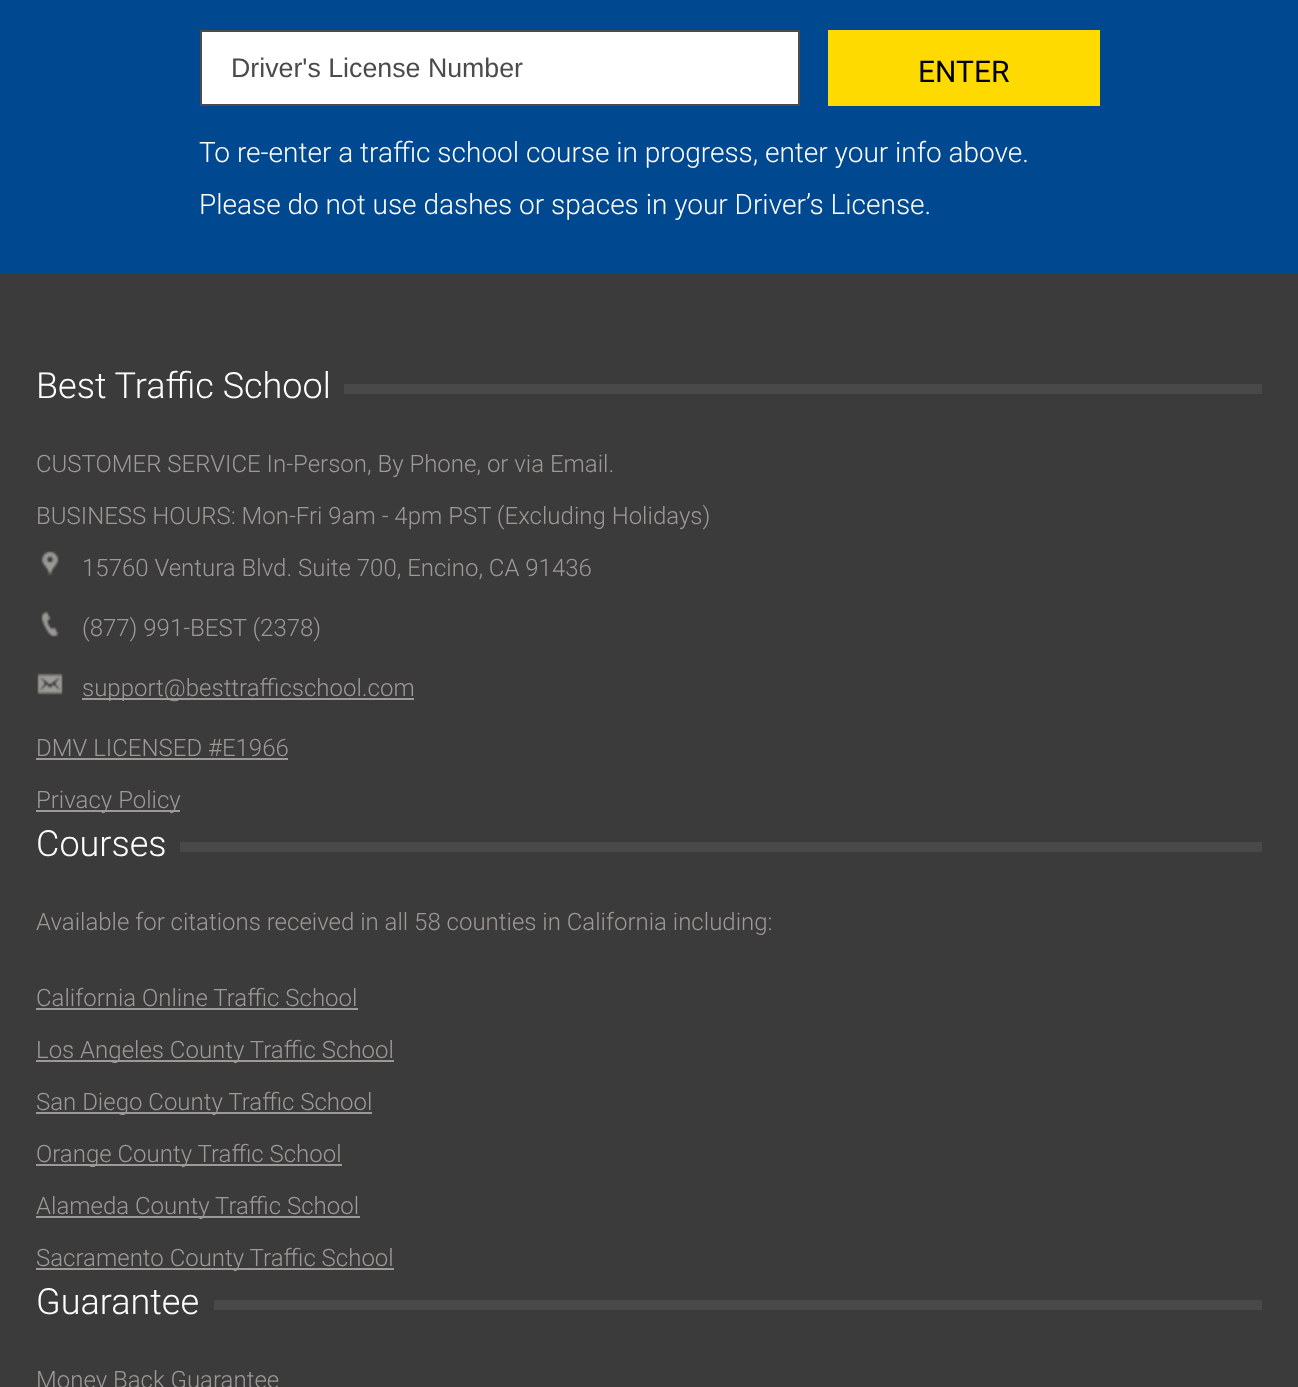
<svg xmlns="http://www.w3.org/2000/svg" width="1298" height="1387" viewBox="0 0 1298 1387">
  <style>
    .t1 { font: 26.75px Liberation Sans; fill: #4b4b4b; }
    .t2 { font: 30px Roboto; fill: #000; }
    .t3 { font: 300 28px Roboto; fill: #fff; }
    .t4 { font: 300 36px Roboto; fill: #fff; }
    .t5 { font: 300 24px Roboto; fill: #9c9a96; }
  </style>
  <rect width="100%" height="100%" fill="#004990"/>
  <rect x="201" y="31" width="598" height="74" fill="#fff" stroke="#4b4b4b" stroke-width="2"/>
  <text x="231" y="77" class="t1">Driver's License Number</text>
  <rect x="828" y="30" width="272" height="76" fill="#ffda00"/>
  <text x="918" y="82" class="t2">ENTER</text>
  <text x="199" y="162" class="t3">To re-enter a traffic school course in progress, enter your info above.</text>
  <text x="199" y="214" class="t3">Please do not use dashes or spaces in your Driver’s License.</text>
  <rect x="0" y="274" width="1298" height="1113" fill="#3b3b3b"/>
  <rect x="344" y="384" width="918" height="10" fill="#4a4949"/>
  <text x="36" y="398" class="t4">Best Traffic School</text>
  <text x="36" y="472" class="t5">CUSTOMER SERVICE In-Person, By Phone, or via Email.</text>
  <text x="36" y="524" class="t5">BUSINESS HOURS: Mon-Fri 9am - 4pm PST (Excluding Holidays)</text>
  <image x="41" y="551" width="18" height="25" href="images/1.png"/>
  <text x="82" y="576" class="t5">15760 Ventura Blvd. Suite 700, Encino, CA 91436</text>
  <image x="41" y="611" width="18" height="26" href="images/2.png"/>
  <text x="82" y="636" class="t5">(877) 991-BEST (2378)</text>
  <image x="37" y="673" width="26" height="22" href="images/3.png"/>
  <rect x="82" y="698" width="332" height="2" fill="#9c9a96"/>
  <text x="82" y="696" class="t5">support@besttrafficschool.com</text>
  <text x="36" y="756" class="t5">DMV LICENSED #E1966</text>
  <rect x="36" y="758" width="252" height="2" fill="#9c9a96"/>
  <rect x="36" y="810" width="144" height="2" fill="#9c9a96"/>
  <text x="36" y="808" class="t5">Privacy Policy</text>
  <rect x="180" y="842" width="1082" height="10" fill="#4a4949"/>
  <text x="36" y="856" class="t4">Courses</text>
  <text x="36" y="930" class="t5">Available for citations received in all 58 counties in California including:</text>
  <text x="36" y="1006" class="t5">California Online Traffic School</text>
  <rect x="36" y="1008" width="322" height="2" fill="#9c9a96"/>
  <rect x="36" y="1060" width="358" height="2" fill="#9c9a96"/>
  <text x="36" y="1058" class="t5">Los Angeles County Traffic School</text>
  <rect x="36" y="1112" width="336" height="2" fill="#9c9a96"/>
  <text x="36" y="1110" class="t5">San Diego County Traffic School</text>
  <rect x="36" y="1164" width="306" height="2" fill="#9c9a96"/>
  <text x="36" y="1162" class="t5">Orange County Traffic School</text>
  <rect x="36" y="1216" width="324" height="2" fill="#9c9a96"/>
  <text x="36" y="1214" class="t5">Alameda County Traffic School</text>
  <rect x="36" y="1268" width="358" height="2" fill="#9c9a96"/>
  <text x="36" y="1266" class="t5">Sacramento County Traffic School</text>
  <rect x="214" y="1300" width="1048" height="10" fill="#4a4949"/>
  <text x="36" y="1314" class="t4">Guarantee</text>
  <text x="36" y="1388" class="t5">Money Back Guarantee</text>
</svg>
